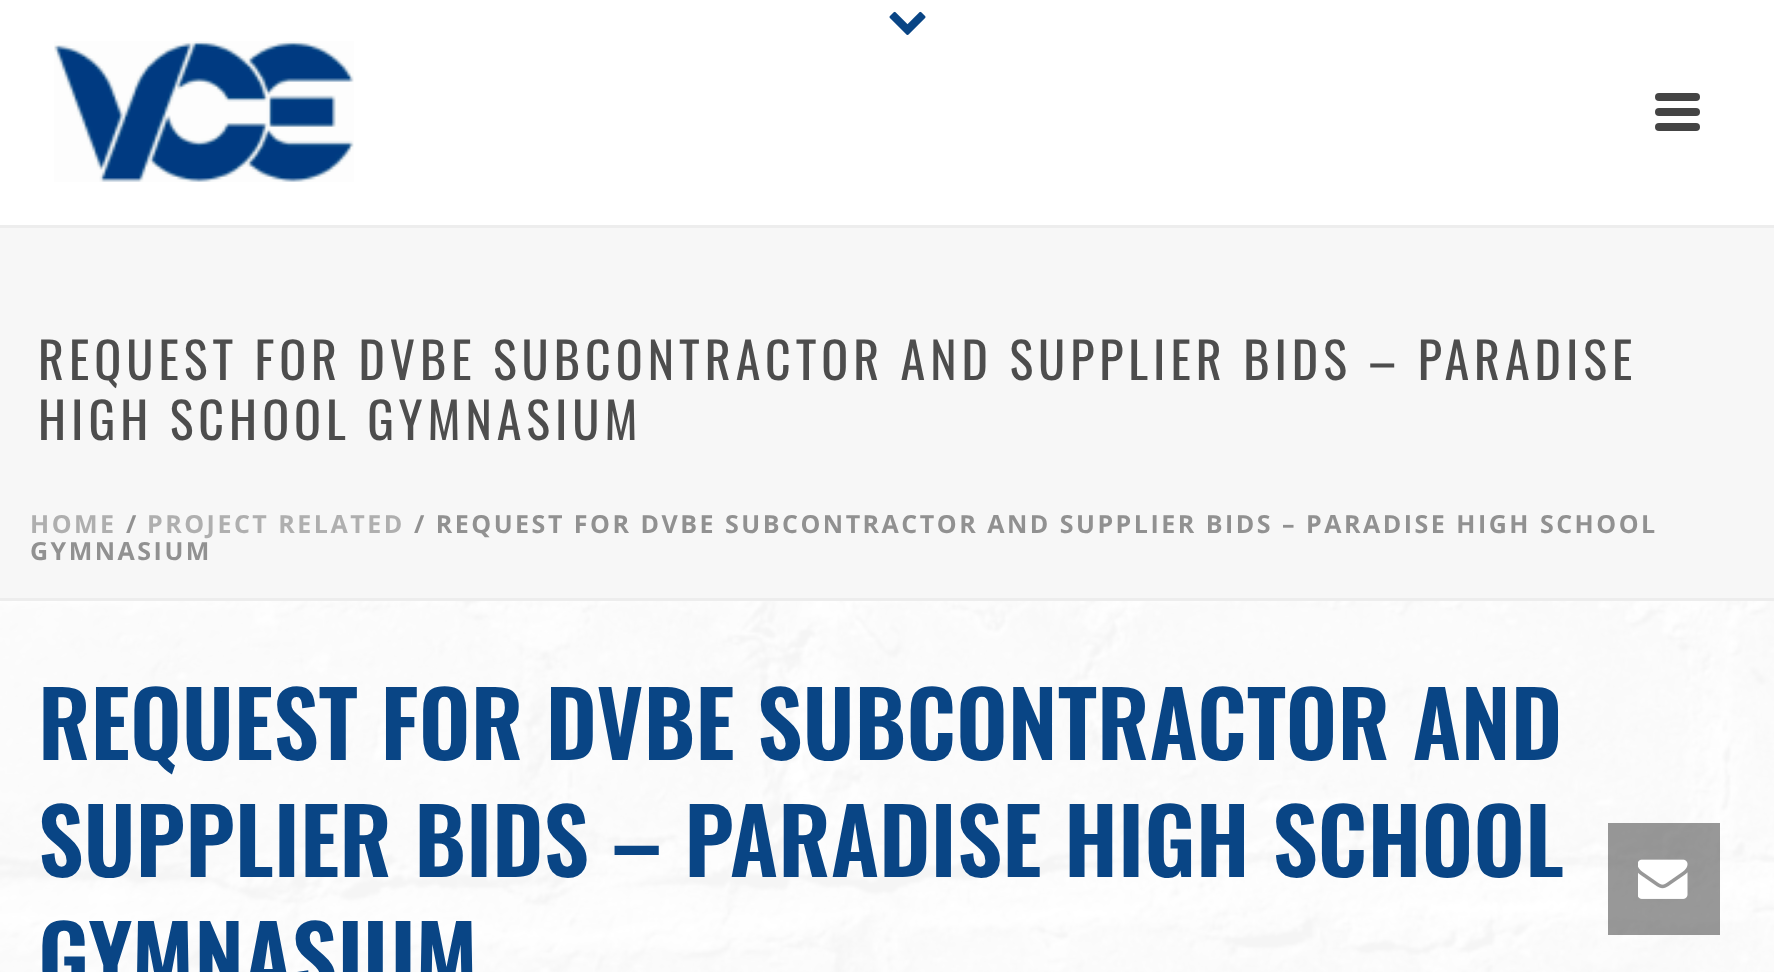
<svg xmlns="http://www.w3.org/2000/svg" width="1774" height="972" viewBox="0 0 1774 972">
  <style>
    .t1 { font: 50px Oswald; letter-spacing: 5px; fill: #4d4d4d; }
    .t2 { font: bold 25px Open Sans; letter-spacing: 2.5px; fill: #afafaf; }
    .t3 { font: bold 25px Open Sans; letter-spacing: 2.5px; fill: #919191; }
    .t4 { font: 600 90px Oswald; fill: #094585; }
  </style>
  <rect width="100%" height="100%" fill="#fff"/>
  <image x="0" y="601" width="1774" height="371" href="images/1.png"/>
  <rect x="0" y="228" width="1774" height="370" fill="#f7f7f7"/>
  <rect x="0" y="598" width="1774" height="3" fill="#ededed"/>
  <rect x="0" y="225" width="1774" height="3" fill="#ededed"/>
  <image x="889" y="11" width="37" height="24" href="images/2.png"/>
  <image x="54" y="41" width="300" height="141" href="images/3.png"/>
  <rect x="1655" y="93" width="45" height="8" rx="4" fill="#444"/>
  <rect x="1655" y="108" width="45" height="8" rx="4" fill="#444"/>
  <rect x="1655" y="123" width="45" height="8" rx="4" fill="#444"/>
  <text x="38" y="380" class="t1">REQUEST FOR DVBE SUBCONTRACTOR AND SUPPLIER BIDS – PARADISE</text>
  <text x="38" y="440" class="t1">HIGH SCHOOL GYMNASIUM</text>
  <text x="30" y="533" class="t2">HOME</text>
  <text x="126" y="533" class="t3">/</text>
  <text x="147" y="533" class="t2">PROJECT RELATED</text>
  <text x="414" y="533" class="t3">/ REQUEST FOR DVBE SUBCONTRACTOR AND SUPPLIER BIDS – PARADISE HIGH SCHOOL</text>
  <text x="30" y="560" class="t3">GYMNASIUM</text>
  <rect x="0" y="601" width="1774" height="371" fill="#fffffff5"/>
  <text x="38" y="760" class="t4">REQUEST FOR DVBE SUBCONTRACTOR AND</text>
  <text x="38" y="877" class="t4">SUPPLIER BIDS – PARADISE HIGH SCHOOL</text>
  <text x="38" y="994" class="t4">GYMNASIUM</text>
  <rect x="1608" y="823" width="112" height="112" fill="#00000066"/>
  <image x="1638" y="859" width="50" height="40" href="images/4.png"/>
</svg>
